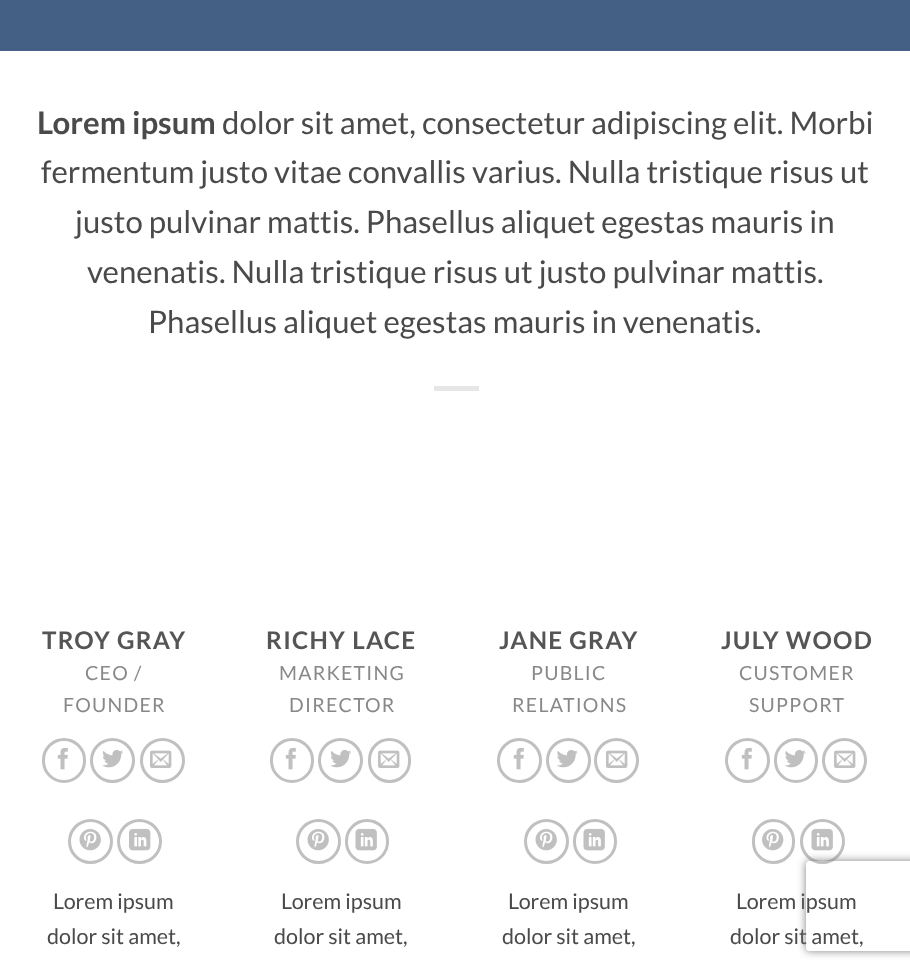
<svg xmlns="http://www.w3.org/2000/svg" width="910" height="971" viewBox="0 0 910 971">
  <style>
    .t1 { font: bold 31.2px Lato; fill: #4a4a4a; }
    .t2 { font: 31.2px Lato; fill: #4a4a4a; }
    .t3 { font: bold 24.25px Lato; letter-spacing: 1.25px; fill: #555; }
    .t4 { font: 19.5px Lato; letter-spacing: 1.25px; fill: #888; }
    .t5 { font: 21.5px Lato; fill: #4a4a4a; }
  </style>
  <defs>
    <clipPath id="clip1"><path d="M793 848H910V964H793ZM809 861H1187C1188.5 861 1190 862.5 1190 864V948C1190 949.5 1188.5 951 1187 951H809C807.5 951 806 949.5 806 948V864C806 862.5 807.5 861 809 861Z" clip-rule="evenodd"/></clipPath>
  </defs>
  <rect width="100%" height="100%" fill="#fff"/>
  <rect x="0" y="0" width="910" height="51" fill="#446084"/>
  <text x="37" y="134" class="t1">Lorem ipsum</text>
  <text x="222" y="134" class="t2">dolor sit amet, consectetur adipiscing elit. Morbi</text>
  <text x="41" y="183" class="t2">fermentum justo vitae convallis varius. Nulla tristique risus ut</text>
  <text x="75" y="233" class="t2">justo pulvinar mattis. Phasellus aliquet egestas mauris in</text>
  <text x="87" y="283" class="t2">venenatis. Nulla tristique risus ut justo pulvinar mattis.</text>
  <text x="148" y="333" class="t2">Phasellus aliquet egestas mauris in venenatis.</text>
  <rect x="434" y="386" width="45" height="5" fill="#e6e6e6"/>
  <text x="42" y="649" class="t3">TROY GRAY</text>
  <text x="85" y="680" class="t4">CEO /</text>
  <text x="63" y="712" class="t4">FOUNDER</text>
  <rect x="43.5" y="739.5" width="41" height="42" rx="20.5" fill="none" stroke="#c0c0c0" stroke-width="3"/>
  <image x="57" y="747" width="11" height="23" href="images/1.png"/>
  <circle cx="112.5" cy="760.5" r="21" fill="none" stroke="#c0c0c0" stroke-width="3"/>
  <image x="102" y="750" width="21" height="18" href="images/2.png"/>
  <circle cx="162.5" cy="760.5" r="21" fill="none" stroke="#c0c0c0" stroke-width="3"/>
  <image x="150" y="750" width="22" height="18" href="images/3.png"/>
  <circle cx="90.5" cy="841.5" r="21" fill="none" stroke="#c0c0c0" stroke-width="3"/>
  <image x="79" y="829" width="22" height="22" href="images/4.png"/>
  <circle cx="139.5" cy="841.5" r="21" fill="none" stroke="#c0c0c0" stroke-width="3"/>
  <image x="129" y="828" width="22" height="23" href="images/5.png"/>
  <text x="53" y="909" class="t5">Lorem ipsum</text>
  <text x="47" y="944" class="t5">dolor sit amet,</text>
  <text x="266" y="649" class="t3">RICHY LACE</text>
  <text x="279" y="680" class="t4">MARKETING</text>
  <text x="289" y="712" class="t4">DIRECTOR</text>
  <rect x="271.5" y="739.5" width="41" height="42" rx="20.5" fill="none" stroke="#c0c0c0" stroke-width="3"/>
  <image x="285" y="747" width="11" height="23" href="images/1.png"/>
  <circle cx="340.5" cy="760.5" r="21" fill="none" stroke="#c0c0c0" stroke-width="3"/>
  <image x="330" y="750" width="21" height="18" href="images/2.png"/>
  <rect x="369.5" y="739.5" width="40" height="42" rx="20" fill="none" stroke="#c0c0c0" stroke-width="3"/>
  <image x="378" y="750" width="22" height="18" href="images/3.png"/>
  <circle cx="318.5" cy="841.5" r="21" fill="none" stroke="#c0c0c0" stroke-width="3"/>
  <image x="307" y="829" width="22" height="22" href="images/4.png"/>
  <rect x="346.5" y="820.5" width="41" height="42" rx="20.5" fill="none" stroke="#c0c0c0" stroke-width="3"/>
  <image x="355" y="828" width="22" height="23" href="images/6.png"/>
  <text x="281" y="909" class="t5">Lorem ipsum</text>
  <text x="274" y="944" class="t5">dolor sit amet,</text>
  <text x="499" y="649" class="t3">JANE GRAY</text>
  <text x="531" y="680" class="t4">PUBLIC</text>
  <text x="512" y="712" class="t4">RELATIONS</text>
  <circle cx="519.5" cy="760.5" r="21" fill="none" stroke="#c0c0c0" stroke-width="3"/>
  <image x="513" y="747" width="11" height="23" href="images/1.png"/>
  <circle cx="568.5" cy="760.5" r="21" fill="none" stroke="#c0c0c0" stroke-width="3"/>
  <image x="557" y="750" width="21" height="18" href="images/7.png"/>
  <circle cx="616.5" cy="760.5" r="21" fill="none" stroke="#c0c0c0" stroke-width="3"/>
  <image x="606" y="750" width="22" height="18" href="images/3.png"/>
  <circle cx="546.5" cy="841.5" r="21" fill="none" stroke="#c0c0c0" stroke-width="3"/>
  <image x="535" y="829" width="22" height="22" href="images/4.png"/>
  <rect x="574.5" y="820.5" width="41" height="42" rx="20.5" fill="none" stroke="#c0c0c0" stroke-width="3"/>
  <image x="583" y="828" width="22" height="23" href="images/6.png"/>
  <text x="508" y="909" class="t5">Lorem ipsum</text>
  <text x="502" y="944" class="t5">dolor sit amet,</text>
  <text x="721" y="649" class="t3">JULY WOOD</text>
  <text x="739" y="680" class="t4">CUSTOMER</text>
  <text x="749" y="712" class="t4">SUPPORT</text>
  <circle cx="747.5" cy="760.5" r="21" fill="none" stroke="#c0c0c0" stroke-width="3"/>
  <image x="741" y="747" width="11" height="23" href="images/1.png"/>
  <rect x="775.5" y="739.5" width="41" height="42" rx="20.5" fill="none" stroke="#c0c0c0" stroke-width="3"/>
  <image x="785" y="750" width="21" height="18" href="images/7.png"/>
  <circle cx="844.5" cy="760.5" r="21" fill="none" stroke="#c0c0c0" stroke-width="3"/>
  <image x="834" y="750" width="22" height="18" href="images/3.png"/>
  <rect x="753.5" y="820.5" width="40" height="42" rx="20" fill="none" stroke="#c0c0c0" stroke-width="3"/>
  <image x="762" y="829" width="22" height="22" href="images/8.png"/>
  <circle cx="822.5" cy="841.5" r="21" fill="none" stroke="#c0c0c0" stroke-width="3"/>
  <image x="811" y="828" width="22" height="23" href="images/6.png"/>
  <text x="736" y="909" class="t5">Lorem ipsum</text>
  <text x="730" y="944" class="t5">dolor sit amet,</text>
  <g clip-path="url(#clip1)">
    <rect x="806" y="861" width="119" height="90" rx="3" fill="#808080" filter="blur(4px)"/>
  </g>
</svg>
